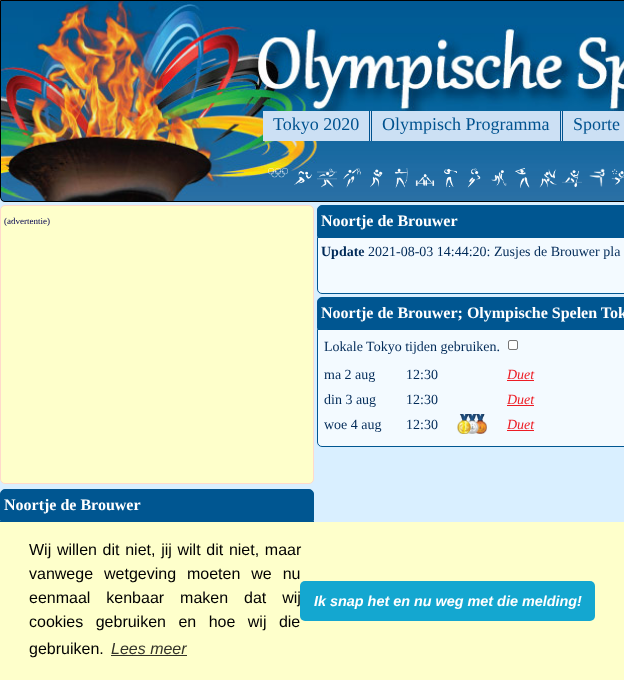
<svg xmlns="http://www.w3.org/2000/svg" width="624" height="680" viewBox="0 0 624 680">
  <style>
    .t1 { font: 18px Liberation Serif; fill: #00528f; }
    .t2 { font: 9px Liberation Serif; fill: #010050; }
    .t3 { font: bold 16px Liberation Serif; fill: #fff; }
    .t4 { font: bold 14px Liberation Serif; fill: #002a58; }
    .t5 { font: 14px Liberation Serif; fill: #002a58; }
    .t6 { font: italic 14px Liberation Serif; fill: #ed1c24; }
    .t7 { font: 16px Liberation Sans; fill: #000; }
    .t8 { font: italic 16px Liberation Sans; fill: #333329; }
    .t9 { font: italic bold 14.4px Liberation Sans; fill: #fff; }
  </style>
  <rect width="100%" height="100%" fill="#d9efff"/>
  <image x="1" y="1" width="623" height="201" href="images/1.png"/>
  <path d="M.5 .5H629.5V197C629.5 199.5 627.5 201.5 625 201.5H5C2.5 201.5 .5 199.5 .5 197Z" fill="none" stroke="#000"/>
  <rect x="263" y="111" width="108" height="30" fill="#cce0f4"/>
  <rect x="369" y="111" width="1" height="30" fill="#00528f"/>
  <rect x="371" y="111" width="1" height="30" fill="#00528f"/>
  <text x="273" y="130" class="t1">Tokyo 2020</text>
  <rect x="372" y="111" width="190" height="30" fill="#cce0f4"/>
  <rect x="560" y="111" width="1" height="30" fill="#00528f"/>
  <rect x="562" y="111" width="1" height="30" fill="#00528f"/>
  <text x="382" y="130" class="t1">Olympisch Programma</text>
  <rect x="563" y="111" width="61" height="30" fill="#cce0f4"/>
  <text x="573" y="130" class="t1">Sporte</text>
  <image x="268" y="168" width="20" height="10" href="images/2.png"/>
  <image x="294" y="171" width="18" height="14" href="images/3.png"/>
  <image x="317" y="168" width="20" height="20" href="images/4.png"/>
  <image x="343" y="168" width="18" height="20" href="images/5.png"/>
  <image x="370" y="169" width="13" height="18" href="images/6.png"/>
  <image x="394" y="168" width="14" height="20" href="images/7.png"/>
  <image x="415" y="174" width="20" height="12" href="images/8.png"/>
  <image x="444" y="168" width="13" height="19" href="images/9.png"/>
  <image x="467" y="168" width="14" height="20" href="images/10.png"/>
  <image x="491" y="170" width="16" height="16" href="images/11.png"/>
  <image x="515" y="168" width="15" height="20" href="images/12.png"/>
  <image x="539" y="169" width="18" height="19" href="images/13.png"/>
  <image x="562" y="170" width="20" height="18" href="images/14.png"/>
  <image x="589" y="168" width="16" height="19" href="images/15.png"/>
  <image x="611" y="169" width="13" height="16" href="images/16.png"/>
  <rect x="0.5" y="205.5" width="313" height="278" rx="4.5" fill="#feffcb" stroke="#ffdacb"/>
  <text x="4" y="224" class="t2">(advertentie)</text>
  <path d="M5 489.5H309C311.5 489.5 313.5 491.5 313.5 494V520.5H.5V494C.5 491.5 2.5 489.5 5 489.5Z" fill="#005691" stroke="#005691"/>
  <text x="4" y="510" class="t3">Noortje de Brouwer</text>
  <rect x="0.5" y="521.5" width="313" height="59" fill="none" stroke="#005691"/>
  <path d="M322 205.5H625C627.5 205.5 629.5 207.5 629.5 210V236.5H317.5V210C317.5 207.5 319.5 205.5 322 205.5Z" fill="#005691" stroke="#005691"/>
  <text x="321" y="226" class="t3">Noortje de Brouwer</text>
  <path d="M317.5 237.5H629.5V289C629.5 291.5 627.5 293.5 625 293.5H322C319.5 293.5 317.5 291.5 317.5 289Z" fill="#f3faff" stroke="#005691"/>
  <text x="321" y="256" class="t4">Update</text>
  <text x="368" y="256" class="t5">2021-08-03 14:44:20: Zusjes de Brouwer pla</text>
  <path d="M322 297.5H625C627.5 297.5 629.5 299.5 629.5 302V328.5H317.5V302C317.5 299.5 319.5 297.5 322 297.5Z" fill="#005691" stroke="#005691"/>
  <text x="321" y="318" class="t3">Noortje de Brouwer; Olympische Spelen Tok</text>
  <path d="M317.5 329.5H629.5V442C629.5 444.5 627.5 446.5 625 446.5H322C319.5 446.5 317.5 444.5 317.5 442Z" fill="#f3faff" stroke="#005691"/>
  <text x="324" y="351" class="t5">Lokale Tokyo tijden gebruiken.</text>
  <rect x="508.5" y="340.5" width="9" height="9" rx="1.5" fill="#fff" stroke="#767676"/>
  <text x="324" y="379" class="t5">ma 2 aug</text>
  <text x="406" y="379" class="t5">12:30</text>
  <text x="507" y="379" class="t6">Duet</text>
  <rect x="507" y="380" width="27" height="1" fill="#ed1c24"/>
  <text x="324" y="404" class="t5">din 3 aug</text>
  <text x="406" y="404" class="t5">12:30</text>
  <text x="507" y="404" class="t6">Duet</text>
  <rect x="507" y="405" width="27" height="1" fill="#ed1c24"/>
  <text x="324" y="429" class="t5">woe 4 aug</text>
  <text x="406" y="429" class="t5">12:30</text>
  <image x="457" y="414" width="30" height="20" href="images/17.png"/>
  <text x="507" y="429" class="t6">Duet</text>
  <rect x="507" y="430" width="27" height="1" fill="#ed1c24"/>
  <rect x="0" y="522" width="624" height="158" fill="#feffcb"/>
  <text x="29" y="555" word-spacing="1.25" class="t7">Wij willen dit niet, jij wilt dit niet, maar</text>
  <text x="29" y="579" word-spacing="6.5" class="t7">vanwege wetgeving moeten we nu</text>
  <text x="29" y="603" word-spacing="11.5" class="t7">eenmaal kenbaar maken dat wij</text>
  <text x="29" y="627" word-spacing="8" class="t7">cookies gebruiken en hoe wij die</text>
  <text x="29" y="654" class="t7">gebruiken.</text>
  <text x="111" y="654" class="t8">Lees meer</text>
  <rect x="111" y="655" width="76" height="1" fill="#333329"/>
  <rect x="300" y="581" width="295" height="40" rx="5" fill="#14a7d0"/>
  <text x="314" y="606" class="t9">Ik snap het en nu weg met die melding!</text>
</svg>
